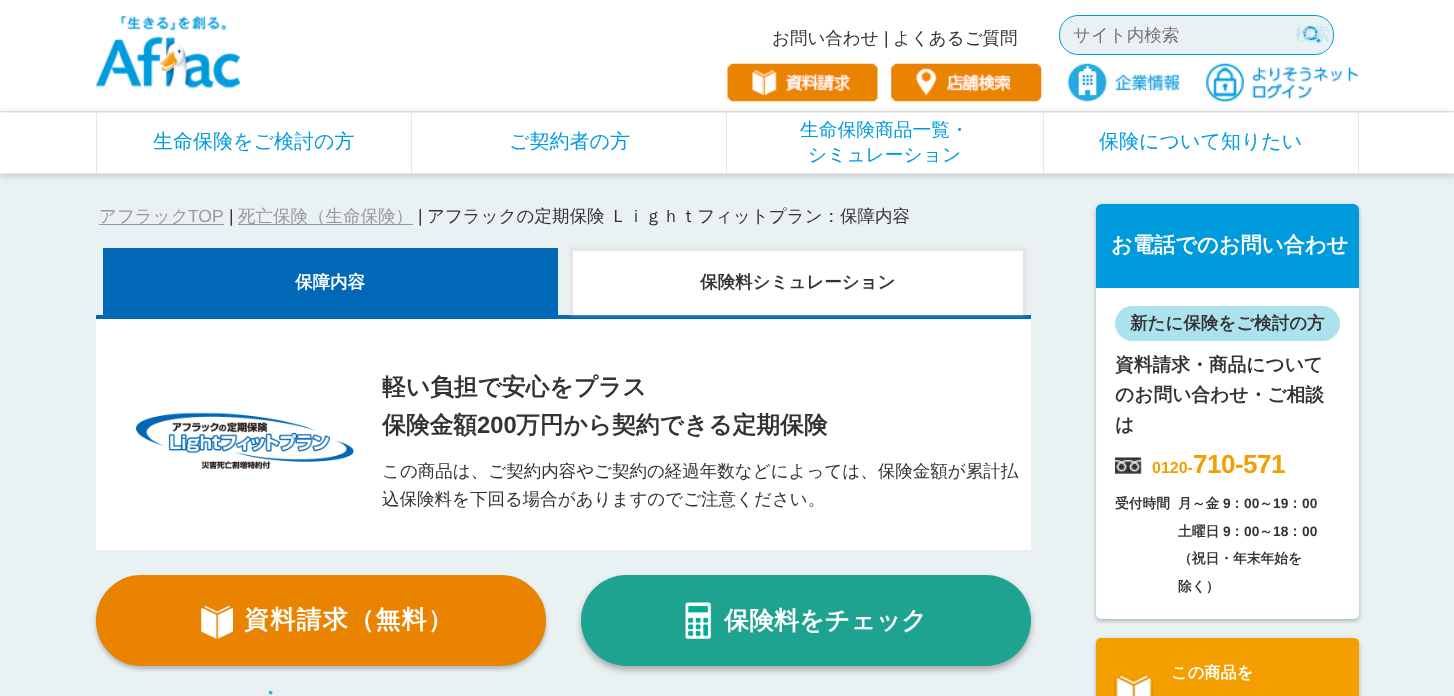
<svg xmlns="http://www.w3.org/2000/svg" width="1454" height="696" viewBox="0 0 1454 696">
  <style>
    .t1 { font: 500 17.5px WenQuanYi Zen Hei; fill: #333; }
    .t2 { font: 17.5px Liberation Sans; fill: #333; }
    .t3 { font: 500 17.5px WenQuanYi Zen Hei; fill: #757575; }
    .t4 { font: 500 17.5px WenQuanYi Zen Hei; fill: #c5e3ef; }
    .t5 { font: 500 20px WenQuanYi Zen Hei; fill: #009bdd; }
    .t6 { font: 500 18.75px WenQuanYi Zen Hei; fill: #009bdd; }
    .t7 { font: 500 17.5px WenQuanYi Zen Hei; fill: #999; }
    .t8 { font: 17.5px Liberation Sans; fill: #999; }
    .t9 { font: bold 17.5px WenQuanYi Zen Hei; fill: #fff; }
    .t10 { font: bold 17.5px WenQuanYi Zen Hei; fill: #333; }
    .t11 { font: bold 23.75px WenQuanYi Zen Hei; fill: #333; }
    .t12 { font: bold 23.75px Liberation Sans; fill: #333; }
    .t13 { font: bold 25px WenQuanYi Zen Hei; letter-spacing: 1.25px; fill: #fff; }
    .t14 { font: bold 20px WenQuanYi Zen Hei; fill: #33b0e3; }
    .t15 { font: bold 25px WenQuanYi Zen Hei; fill: #fff; }
    .t16 { font: bold 21.25px WenQuanYi Zen Hei; fill: #fff; }
    .t17 { font: bold 18.75px WenQuanYi Zen Hei; fill: #333; }
    .t18 { font: bold 16px Liberation Sans; fill: #f49e00; }
    .t19 { font: bold 26px Liberation Sans; letter-spacing: -0.5px; fill: #f49e00; }
    .t20 { font: bold 13.75px WenQuanYi Zen Hei; fill: #333; }
    .t21 { font: bold 13.75px Liberation Sans; fill: #333; }
    .t22 { font: bold 16.25px WenQuanYi Zen Hei; fill: #fff; }
  </style>
  <defs>
    <clipPath id="clip1"><path d="M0 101H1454V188H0ZM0 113H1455V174H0Z" clip-rule="evenodd"/></clipPath>
  </defs>
  <rect width="100%" height="100%" fill="#e9f1f3"/>
  <rect x="0" y="0" width="1454" height="173" fill="#fff"/>
  <rect x="0" y="111" width="1454" height="1" fill="#e6e6e6"/>
  <image x="96" y="16" width="144" height="72" href="images/1.png"/>
  <text x="772" y="44" class="t1">お問い合わせ</text>
  <text x="884" y="44" class="t2">|</text>
  <text x="893" y="44" class="t1">よくあるご質問</text>
  <rect x="1059.5" y="15.5" width="274" height="39" rx="18.5" fill="#e9f1f3" stroke="#009cde"/>
  <text x="1073" y="41" class="t3">サイト内検索</text>
  <image x="1303" y="26" width="18" height="17" href="images/2.png"/>
  <text x="1295" y="40" class="t4">検索</text>
  <g clip-path="url(#clip1)">
    <rect x="0" y="114" width="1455" height="61" fill="#01010133" filter="blur(4px)"/>
  </g>
  <image x="727" y="63" width="151" height="39" href="images/3.png"/>
  <image x="891" y="63" width="151" height="39" href="images/4.png"/>
  <image x="1067" y="63" width="113" height="39" href="images/5.png"/>
  <image x="1206" y="63" width="153" height="39" href="images/6.png"/>
  <rect x="0" y="173" width="1454" height="1" fill="#e6e6e6"/>
  <rect x="411" y="113" width="1" height="60" fill="#e6e6e6"/>
  <rect x="96" y="113" width="1" height="60" fill="#e6e6e6"/>
  <text x="153" y="148" class="t5">生命保険をご検討の方</text>
  <rect x="726" y="113" width="1" height="60" fill="#e6e6e6"/>
  <text x="509" y="148" class="t5">ご契約者の方</text>
  <rect x="1043" y="113" width="1" height="60" fill="#e6e6e6"/>
  <text x="800" y="136" class="t6">生命保険商品一覧・</text>
  <text x="808" y="161" class="t6">シミュレーション</text>
  <rect x="1358" y="113" width="1" height="60" fill="#e6e6e6"/>
  <text x="1099" y="148" class="t5">保険について知りたい</text>
  <rect x="99" y="224" width="125" height="1" fill="#999"/>
  <text x="99" y="222" class="t7">アフラック</text>
  <text x="188" y="222" class="t8">TOP</text>
  <text x="229" y="222" class="t2">|</text>
  <rect x="238" y="224" width="175" height="1" fill="#999"/>
  <text x="238" y="222" class="t7">死亡保険（生命保険）</text>
  <text x="418" y="222" class="t2">|</text>
  <text x="427" y="222" class="t1">アフラックの定期保険 Ｌｉｇｈｔフィットプラン：保障内容</text>
  <rect x="96" y="315" width="935" height="4" fill="#0168b7"/>
  <rect x="103" y="248" width="455" height="67" fill="#0168b7"/>
  <text x="295" y="288" class="t9">保障内容</text>
  <rect x="96" y="319" width="935" height="231" fill="#fff"/>
  <rect x="570" y="246" width="455" height="68" fill="#e6e6e6" filter="blur(2px)"/>
  <rect x="573" y="251" width="450" height="64" fill="#fff"/>
  <rect x="570" y="248" width="455" height="3" fill="#e6e6e6"/>
  <rect x="1023" y="248" width="3" height="67" fill="#e6e6e6"/>
  <rect x="570" y="248" width="3" height="67" fill="#e6e6e6"/>
  <text x="700" y="288" class="t10">保険料シミュレーション</text>
  <image x="136" y="412" width="218" height="57" href="images/7.png"/>
  <text x="382" y="395" class="t11">軽い負担で安心をプラス</text>
  <text x="382" y="433" class="t11">保険金額</text>
  <text x="477" y="433" class="t12">200</text>
  <text x="516" y="433" class="t11">万円から契約できる定期保険</text>
  <text x="382" y="477" class="t1">この商品は、ご契約内容やご契約の経過年数などによっては、保険金額が累計払</text>
  <text x="382" y="505" class="t1">込保険料を下回る場合がありますのでご注意ください。</text>
  <rect x="96" y="578" width="450" height="91" rx="45.5" fill="#04000040" filter="blur(2px)"/>
  <rect x="97.5" y="576.5" width="447" height="88" rx="44" fill="#e98300" stroke="#e98300" stroke-width="3"/>
  <image x="201" y="605" width="32" height="34" href="images/8.png"/>
  <text x="244" y="628" class="t13">資料請求（無料）</text>
  <text x="260" y="700" class="t14">・</text>
  <rect x="581" y="579" width="450" height="91" rx="45.5" fill="#a9a9a9" filter="blur(3px)"/>
  <rect x="581" y="575" width="450" height="91" rx="45.5" fill="#1da38f"/>
  <image x="685" y="602" width="27" height="37" href="images/9.png"/>
  <text x="724" y="629" class="t15">保険料をチェック</text>
  <rect x="1096" y="206" width="263" height="415" rx="5" fill="#04000040" filter="blur(2px)"/>
  <rect x="1096" y="204" width="263" height="415" rx="5" fill="#fff"/>
  <path d="M1102 204H1353C1356.5 204 1359 206.5 1359 210V288H1096V210C1096 206.5 1098.5 204 1102 204Z" fill="#009bdd"/>
  <text x="1111" y="252" class="t16">お電話でのお問い合わせ</text>
  <rect x="1115" y="306" width="225" height="35" rx="17.5" fill="#ace2ee"/>
  <text x="1130" y="329" class="t10">新たに保険をご検討の方</text>
  <text x="1115" y="371" class="t17">資料請求・商品について</text>
  <text x="1115" y="401" class="t17">のお問い合わせ・ご相談</text>
  <text x="1115" y="431" class="t17">は</text>
  <image x="1115" y="457" width="27" height="17" href="images/10.png"/>
  <text x="1152" y="473" class="t18">0120-</text>
  <text x="1193" y="473" class="t19">710-571</text>
  <text x="1115" y="508" class="t20">受付時間</text>
  <text x="1178" y="508" class="t20">月～金</text>
  <text x="1223" y="508" class="t21">9</text>
  <text x="1230" y="508" class="t20">：</text>
  <text x="1244" y="508" class="t21">00</text>
  <text x="1259" y="508" class="t20">～</text>
  <text x="1273" y="508" class="t21">19</text>
  <text x="1288" y="508" class="t20">：</text>
  <text x="1302" y="508" class="t21">00</text>
  <text x="1178" y="536" class="t20">土曜日</text>
  <text x="1223" y="536" class="t21">9</text>
  <text x="1230" y="536" class="t20">：</text>
  <text x="1244" y="536" class="t21">00</text>
  <text x="1259" y="536" class="t20">～</text>
  <text x="1273" y="536" class="t21">18</text>
  <text x="1288" y="536" class="t20">：</text>
  <text x="1302" y="536" class="t21">00</text>
  <text x="1178" y="563" class="t20">（祝日・年末年始を</text>
  <text x="1178" y="591" class="t20">除く）</text>
  <rect x="1096" y="640" width="263" height="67" rx="5" fill="#04000040" filter="blur(2px)"/>
  <rect x="1096" y="638" width="263" height="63" rx="5" fill="#f49e00"/>
  <image x="1113" y="674" width="41" height="22" href="images/11.png"/>
  <text x="1171" y="678" class="t22">この商品を</text>
</svg>
